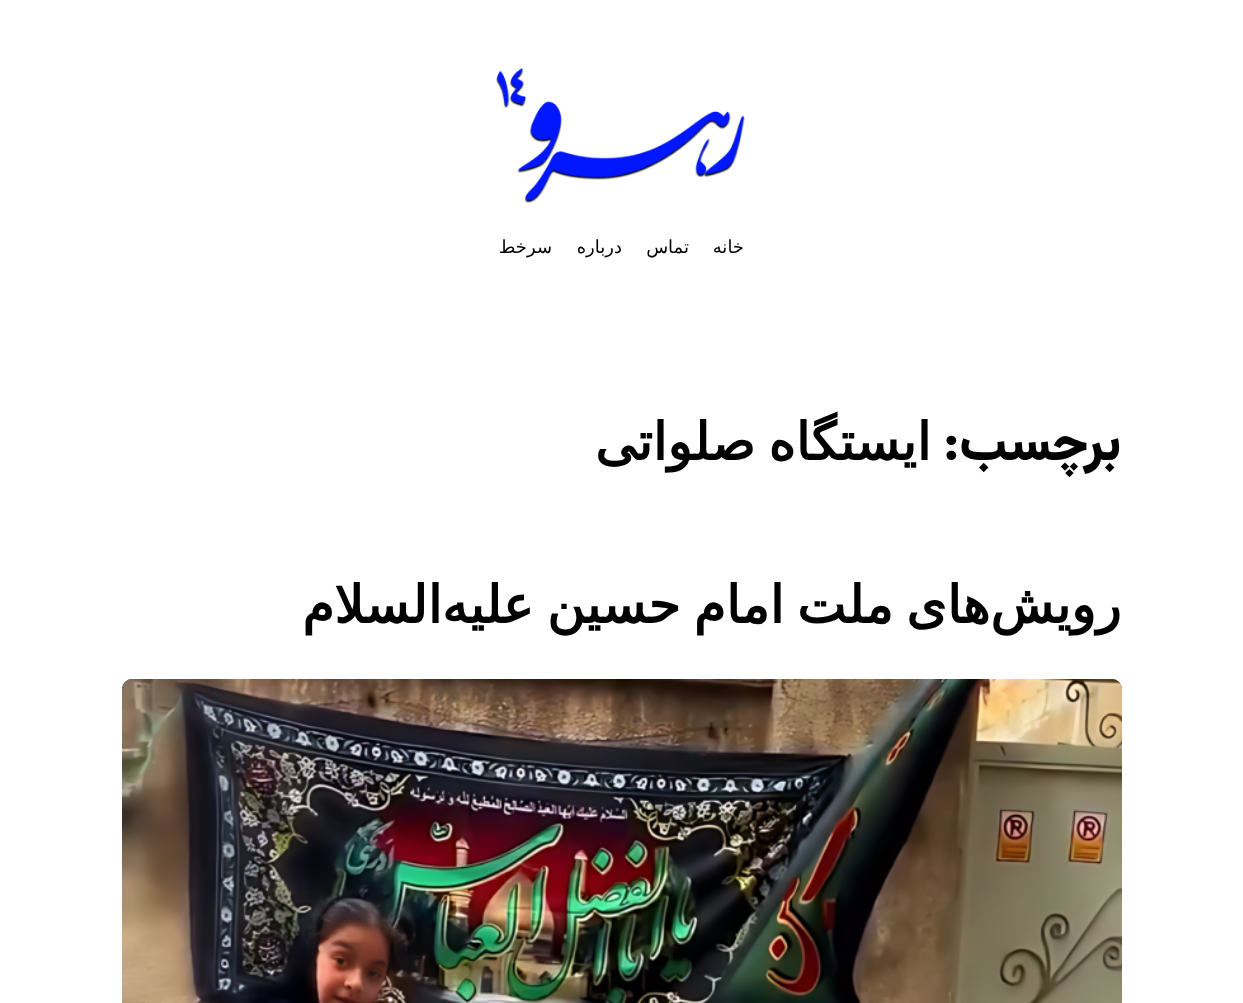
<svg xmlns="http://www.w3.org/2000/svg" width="1243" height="1003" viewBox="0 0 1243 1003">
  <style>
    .t1 { font: 18px DejaVu Sans; direction: rtl; fill: #000; }
    .t2 { font: 900 52px Vazirmatn; direction: rtl; fill: #000; }
    .t3 { font: bold 52px DejaVu Sans; direction: rtl; fill: #000; }
  </style>
  <rect width="100%" height="100%" fill="#fff"/>
  <image x="496" y="68" width="249" height="135" href="images/1.png"/>
  <text x="744" y="253" class="t1">خانه</text>
  <text x="689" y="253" class="t1">تماس</text>
  <text x="622" y="253" class="t1">درباره</text>
  <text x="552" y="253" class="t1">سرخط</text>
  <text x="1121" y="460" class="t2">برچسب:</text>
  <text x="931" y="460" word-spacing="-3.5" class="t3">ایستگاه صلواتی</text>
  <text x="1121" y="623" word-spacing="-3.5" class="t3">رویش‌های ملت امام حسین علیه‌السلام</text>
  <rect x="122" y="679" width="1000" height="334" rx="10" fill="#534c46"/>
  <image x="122" y="679" width="1000" height="324" href="images/2.png"/>
</svg>
